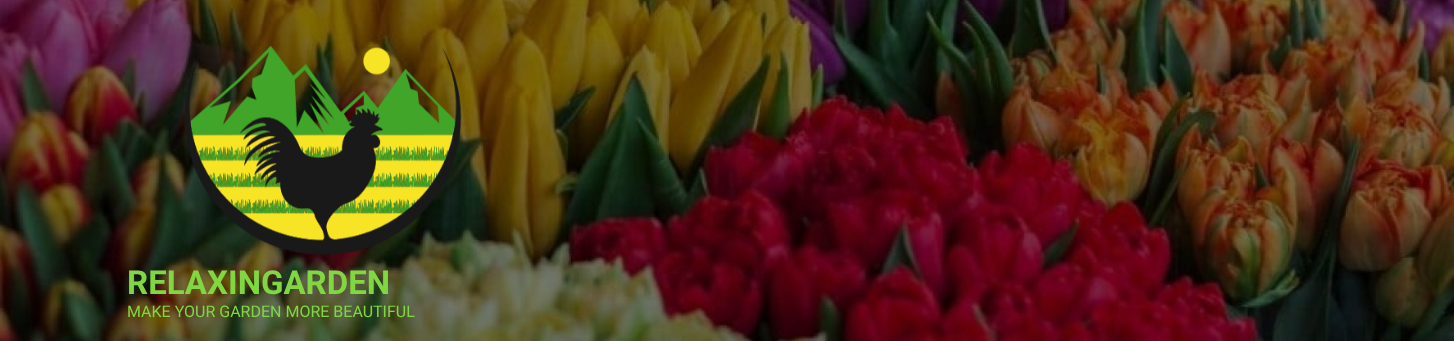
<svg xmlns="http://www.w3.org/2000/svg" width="1454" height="341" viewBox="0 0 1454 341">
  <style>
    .t1 { font: bold 33px Roboto; fill: #81d742; }
    .t2 { font: 16px Roboto; fill: #81d742; }
  </style>
  <rect width="100%" height="100%" fill="#fff"/>
  <image x="0" y="0" width="1454" height="341" href="images/1.png"/>
  <image x="184" y="45" width="278" height="211" href="images/2.png"/>
  <text x="127" y="294" class="t1">RELAXINGARDEN</text>
  <text x="127" y="317" class="t2">MAKE YOUR GARDEN MORE BEAUTIFUL</text>
</svg>
